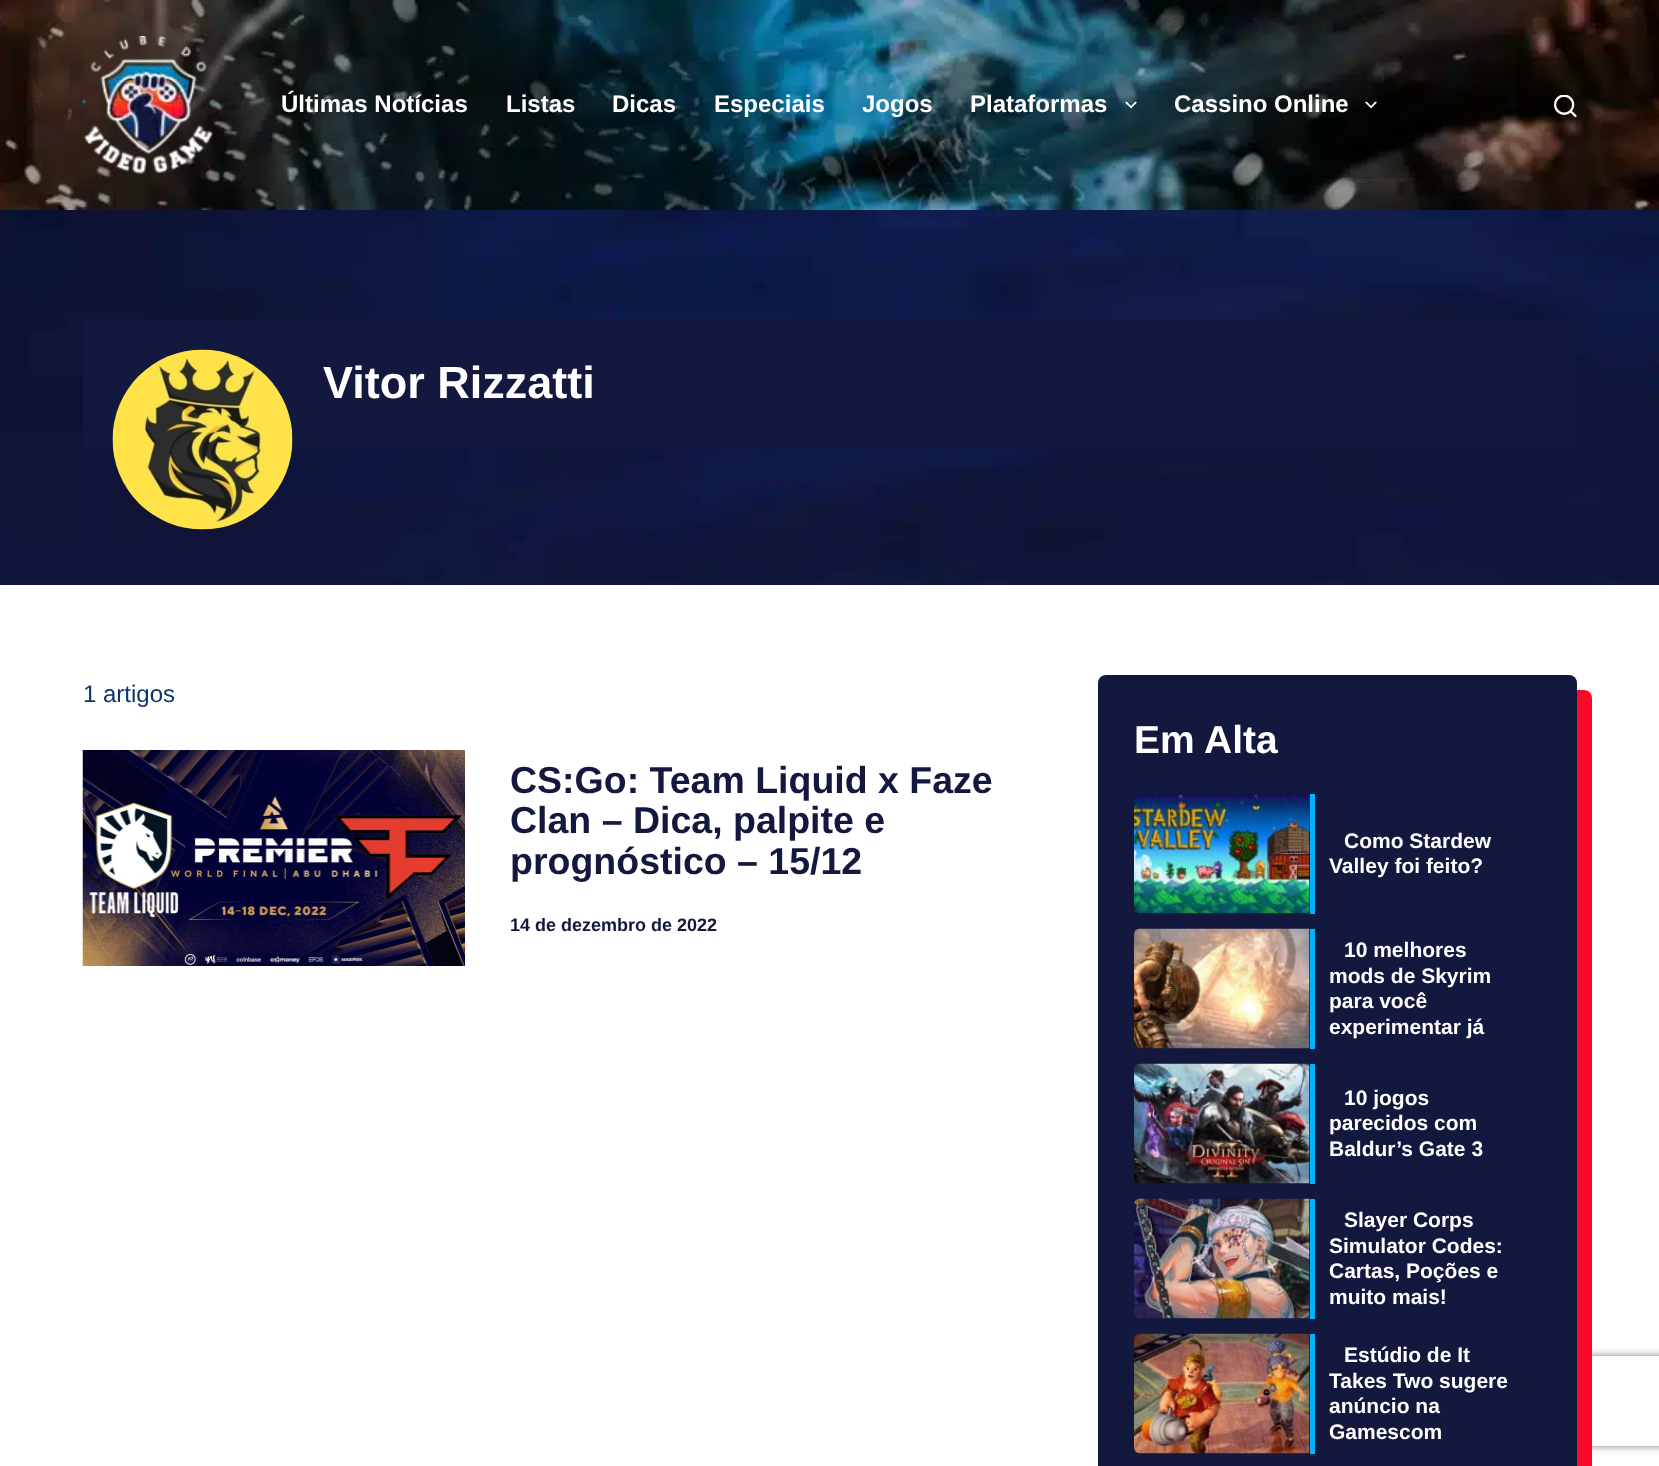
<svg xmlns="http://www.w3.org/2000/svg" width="1659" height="1466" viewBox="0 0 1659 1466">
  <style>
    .t1 { font: bold 24px Liberation Sans; fill: #fff; }
    .t2 { font: bold 45px Liberation Sans; fill: #fff; }
    .t3 { font: 24px Liberation Sans; fill: #11346a; }
    .t4 { font: bold 37.5px Liberation Sans; fill: #13183e; }
    .t5 { font: bold 18px Liberation Sans; fill: #13183e; }
    .t6 { font: bold 39px Liberation Sans; fill: #fff; }
    .t7 { font: bold 21px Liberation Sans; fill: #fff; }
  </style>
  <defs>
    <clipPath id="clip1"><path d="M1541 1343H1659V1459H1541ZM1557 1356H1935C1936.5 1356 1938 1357.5 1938 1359V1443C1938 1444.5 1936.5 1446 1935 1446H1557C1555.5 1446 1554 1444.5 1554 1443V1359C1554 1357.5 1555.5 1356 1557 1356Z" clip-rule="evenodd"/></clipPath>
  </defs>
  <rect width="100%" height="100%" fill="#fff"/>
  <image x="0" y="0" width="1659" height="210" href="images/1.png"/>
  <image x="82" y="36" width="133" height="138" href="images/2.png"/>
  <text x="281" y="112" class="t1">Últimas Notícias</text>
  <text x="506" y="112" class="t1">Listas</text>
  <text x="612" y="112" class="t1">Dicas</text>
  <text x="714" y="112" class="t1">Especiais</text>
  <text x="862" y="112" class="t1">Jogos</text>
  <text x="970" y="112" class="t1">Plataformas</text>
  <image x="1125" y="101" width="12" height="8" href="images/3.png"/>
  <text x="1174" y="112" class="t1">Cassino Online</text>
  <image x="1365" y="101" width="12" height="8" href="images/4.png"/>
  <image x="1554" y="95" width="23" height="22" href="images/5.png"/>
  <image x="0" y="210" width="1659" height="375" href="images/6.png"/>
  <rect x="83" y="320" width="1494" height="127" fill="#13183e"/>
  <image x="112" y="349" width="181" height="181" href="images/7.png"/>
  <text x="323" y="398" class="t2">Vitor Rizzatti</text>
  <text x="83" y="702" class="t3">1 artigos</text>
  <image x="82" y="750" width="383" height="216" href="images/8.png"/>
  <text x="510" y="793" class="t4">CS:Go: Team Liquid x Faze</text>
  <text x="510" y="833" class="t4">Clan – Dica, palpite e</text>
  <text x="510" y="874" class="t4">prognóstico – 15/12</text>
  <text x="510" y="931" class="t5">14 de dezembro de 2022</text>
  <g clip-path="url(#clip1)">
    <rect x="1554" y="1356" width="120" height="90" rx="3" fill="#808080" filter="blur(4px)"/>
  </g>
  <rect x="1113" y="690" width="479" height="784" rx="8" fill="#fa0a27"/>
  <rect x="1098" y="675" width="479" height="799" rx="8" fill="#13183e"/>
  <text x="1134" y="753" class="t6">Em Alta</text>
  <rect x="1310" y="794" width="5" height="120" fill="#00b4ff"/>
  <image x="1134" y="793" width="176" height="121" href="images/9.png"/>
  <text x="1344" y="848" class="t7">Como Stardew</text>
  <text x="1329" y="873" class="t7">Valley foi feito?</text>
  <rect x="1310" y="929" width="5" height="120" fill="#00b4ff"/>
  <image x="1134" y="928" width="176" height="121" href="images/10.png"/>
  <text x="1344" y="957" class="t7">10 melhores</text>
  <text x="1329" y="983" class="t7">mods de Skyrim</text>
  <text x="1329" y="1008" class="t7">para você</text>
  <text x="1329" y="1034" class="t7">experimentar já</text>
  <rect x="1310" y="1064" width="5" height="120" fill="#00b4ff"/>
  <image x="1134" y="1063" width="176" height="121" href="images/11.png"/>
  <text x="1344" y="1105" class="t7">10 jogos</text>
  <text x="1329" y="1130" class="t7">parecidos com</text>
  <text x="1329" y="1156" class="t7">Baldur’s Gate 3</text>
  <rect x="1310" y="1199" width="5" height="120" fill="#00b4ff"/>
  <image x="1134" y="1198" width="176" height="121" href="images/12.png"/>
  <text x="1344" y="1227" class="t7">Slayer Corps</text>
  <text x="1329" y="1253" class="t7">Simulator Codes:</text>
  <text x="1329" y="1278" class="t7">Cartas, Poções e</text>
  <text x="1329" y="1304" class="t7">muito mais!</text>
  <rect x="1310" y="1334" width="5" height="120" fill="#00b4ff"/>
  <image x="1134" y="1333" width="176" height="121" href="images/13.png"/>
  <text x="1344" y="1362" class="t7">Estúdio de It</text>
  <text x="1329" y="1388" class="t7">Takes Two sugere</text>
  <text x="1329" y="1413" class="t7">anúncio na</text>
  <text x="1329" y="1439" class="t7">Gamescom</text>
</svg>
